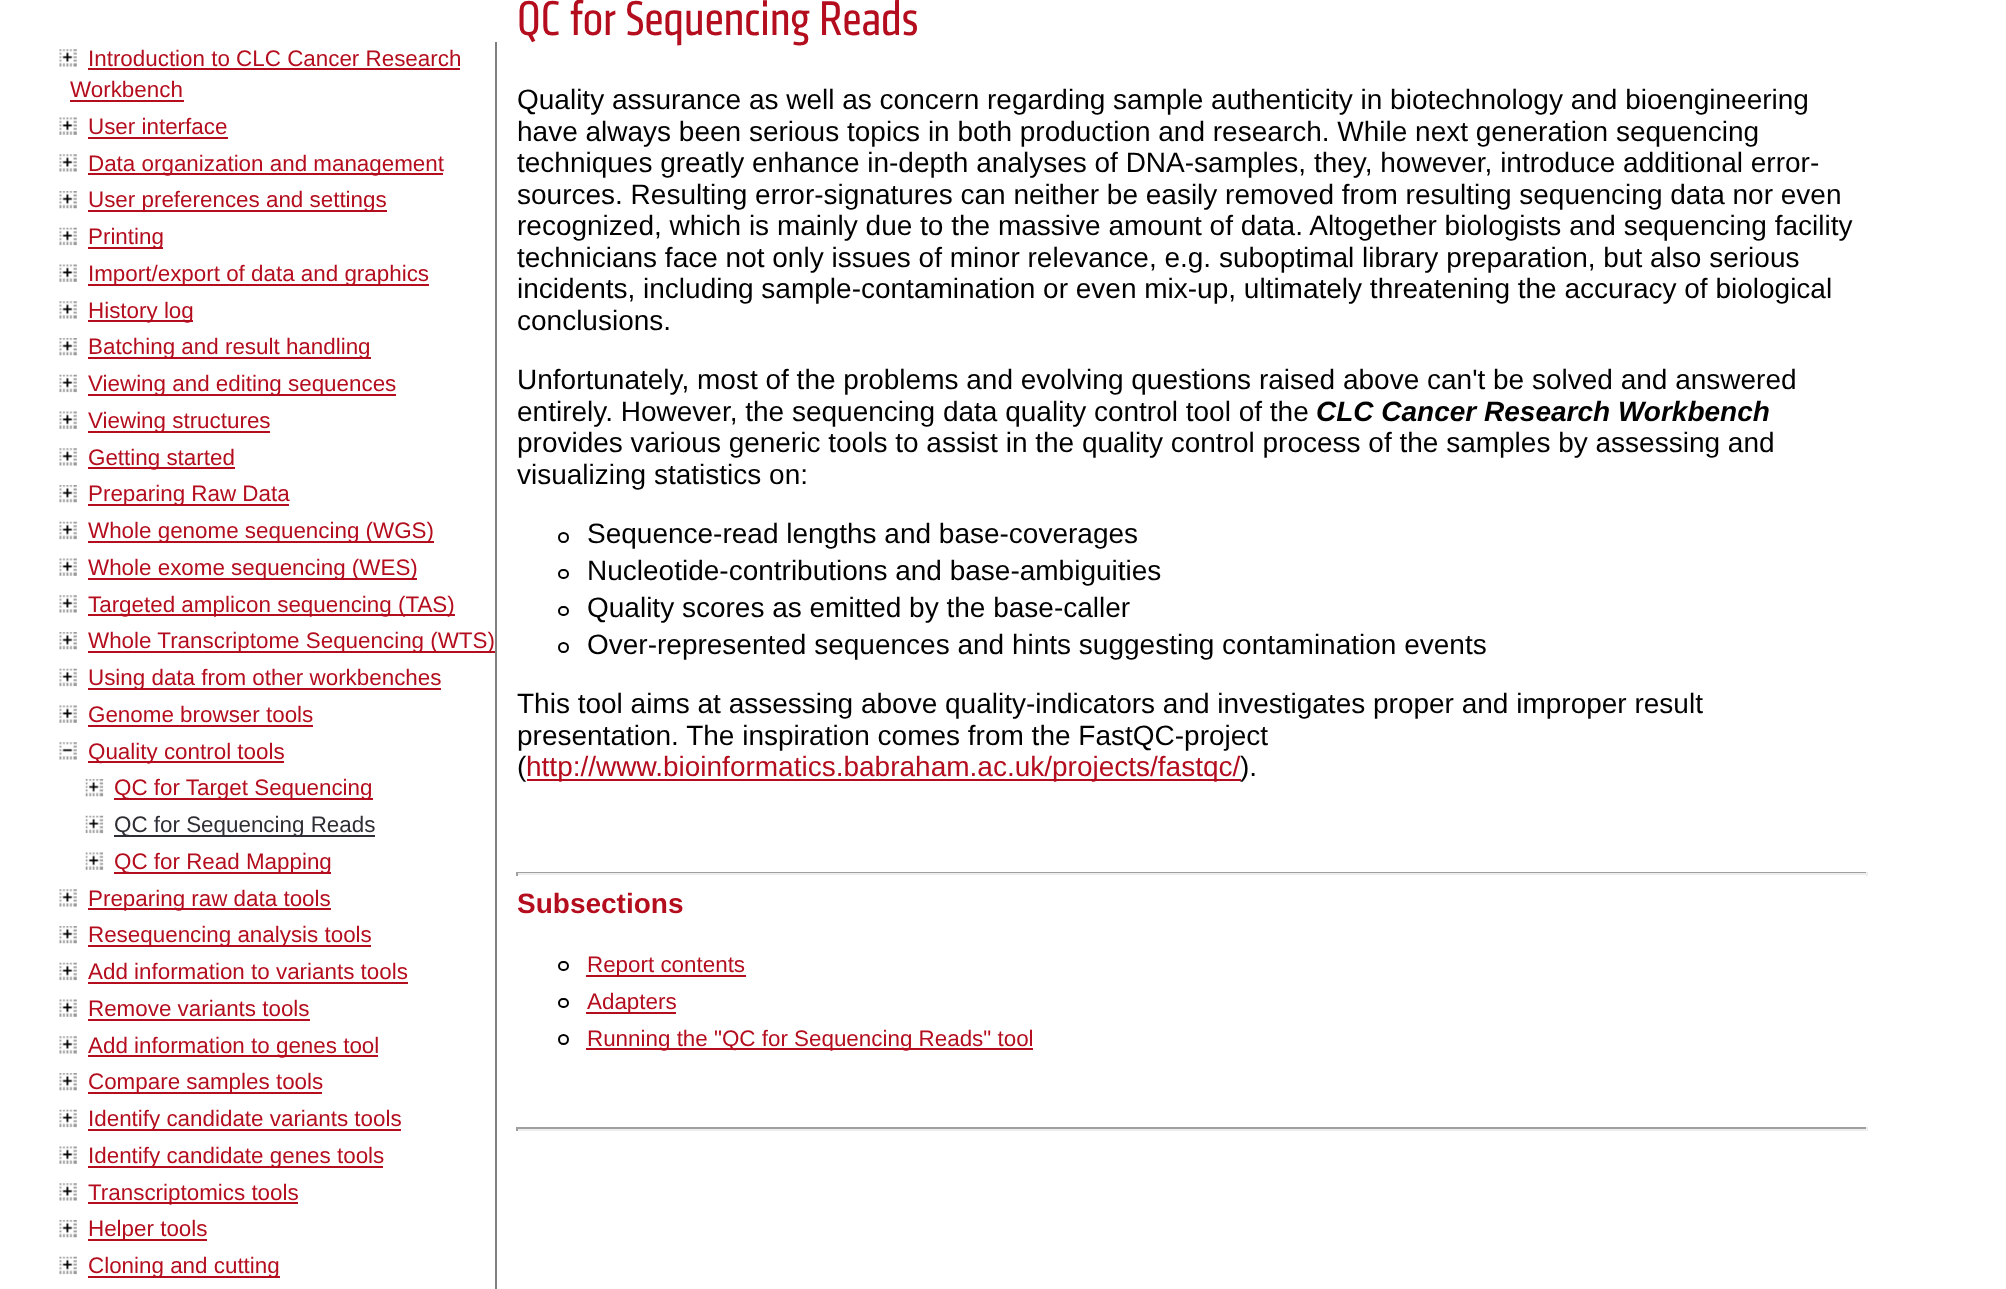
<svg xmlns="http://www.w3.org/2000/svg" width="2006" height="1289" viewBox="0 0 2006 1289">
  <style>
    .t1 { font: 22.4px Liberation Sans; fill: #b40d1e; }
    .t2 { font: 22.4px Liberation Sans; fill: #2e2e35; }
    .t3 { font: 50.5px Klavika; fill: #b40d1e; }
    .t4 { font: 28px Liberation Sans; fill: #000; }
    .t5 { font: italic bold 28px Liberation Sans; fill: #000; }
    .t6 { font: 28px Liberation Sans; fill: #b40d1e; }
    .t7 { font: bold 28px Liberation Sans; fill: #b40d1e; }
  </style>
  <rect width="100%" height="100%" fill="#fff"/>
  <rect x="495" y="42" width="2" height="1247" fill="#808080"/>
  <image x="59" y="49" width="18" height="18" href="images/1.png"/>
  <text x="88" y="66" class="t1">Introduction to CLC Cancer Research</text>
  <rect x="88" y="68" width="372" height="2" fill="#b40d1e"/>
  <text x="70" y="97" class="t1">Workbench</text>
  <rect x="70" y="100" width="114" height="2" fill="#b40d1e"/>
  <image x="59" y="117" width="18" height="18" href="images/2.png"/>
  <text x="88" y="134" class="t1">User interface</text>
  <rect x="88" y="137" width="140" height="2" fill="#b40d1e"/>
  <image x="59" y="154" width="18" height="18" href="images/1.png"/>
  <rect x="88" y="173" width="355" height="2" fill="#b40d1e"/>
  <text x="88" y="171" class="t1">Data organization and management</text>
  <image x="59" y="191" width="18" height="18" href="images/3.png"/>
  <rect x="88" y="210" width="299" height="2" fill="#b40d1e"/>
  <text x="88" y="207" class="t1">User preferences and settings</text>
  <image x="59" y="227" width="18" height="19" href="images/4.png"/>
  <rect x="88" y="247" width="75" height="2" fill="#b40d1e"/>
  <text x="88" y="244" class="t1">Printing</text>
  <image x="59" y="264" width="18" height="18" href="images/2.png"/>
  <rect x="88" y="284" width="341" height="2" fill="#b40d1e"/>
  <text x="88" y="281" class="t1">Import/export of data and graphics</text>
  <image x="59" y="301" width="18" height="18" href="images/1.png"/>
  <rect x="88" y="320" width="105" height="2" fill="#b40d1e"/>
  <text x="88" y="318" class="t1">History log</text>
  <image x="59" y="338" width="18" height="18" href="images/3.png"/>
  <rect x="88" y="357" width="283" height="2" fill="#b40d1e"/>
  <text x="88" y="354" class="t1">Batching and result handling</text>
  <image x="59" y="374" width="18" height="19" href="images/4.png"/>
  <rect x="88" y="394" width="308" height="2" fill="#b40d1e"/>
  <text x="88" y="391" class="t1">Viewing and editing sequences</text>
  <image x="59" y="411" width="18" height="18" href="images/2.png"/>
  <rect x="88" y="431" width="182" height="2" fill="#b40d1e"/>
  <text x="88" y="428" class="t1">Viewing structures</text>
  <image x="59" y="448" width="18" height="18" href="images/1.png"/>
  <rect x="88" y="467" width="147" height="2" fill="#b40d1e"/>
  <text x="88" y="465" class="t1">Getting started</text>
  <image x="59" y="485" width="18" height="18" href="images/3.png"/>
  <rect x="88" y="504" width="201" height="2" fill="#b40d1e"/>
  <text x="88" y="501" class="t1">Preparing Raw Data</text>
  <image x="59" y="521" width="18" height="19" href="images/4.png"/>
  <rect x="88" y="541" width="346" height="2" fill="#b40d1e"/>
  <text x="88" y="538" class="t1">Whole genome sequencing (WGS)</text>
  <image x="59" y="558" width="18" height="18" href="images/2.png"/>
  <rect x="88" y="578" width="329" height="2" fill="#b40d1e"/>
  <text x="88" y="575" class="t1">Whole exome sequencing (WES)</text>
  <image x="59" y="595" width="18" height="18" href="images/1.png"/>
  <rect x="88" y="614" width="367" height="2" fill="#b40d1e"/>
  <text x="88" y="612" class="t1">Targeted amplicon sequencing (TAS)</text>
  <image x="59" y="632" width="18" height="18" href="images/3.png"/>
  <rect x="88" y="651" width="407" height="2" fill="#b40d1e"/>
  <text x="88" y="648" class="t1">Whole Transcriptome Sequencing (WTS)</text>
  <image x="59" y="668" width="18" height="19" href="images/4.png"/>
  <rect x="88" y="688" width="353" height="2" fill="#b40d1e"/>
  <text x="88" y="685" class="t1">Using data from other workbenches</text>
  <image x="59" y="705" width="18" height="18" href="images/2.png"/>
  <text x="88" y="722" class="t1">Genome browser tools</text>
  <rect x="88" y="725" width="225" height="2" fill="#b40d1e"/>
  <image x="59" y="742" width="18" height="18" href="images/5.png"/>
  <rect x="88" y="761" width="196" height="2" fill="#b40d1e"/>
  <text x="88" y="759" class="t1">Quality control tools</text>
  <image x="85" y="779" width="19" height="18" href="images/6.png"/>
  <rect x="114" y="798" width="259" height="2" fill="#b40d1e"/>
  <text x="114" y="795" class="t1">QC for Target Sequencing</text>
  <image x="85" y="815" width="19" height="19" href="images/7.png"/>
  <rect x="114" y="835" width="261" height="2" fill="#2e2e35"/>
  <text x="114" y="832" class="t2">QC for Sequencing Reads</text>
  <image x="85" y="852" width="19" height="18" href="images/8.png"/>
  <rect x="114" y="872" width="217" height="2" fill="#b40d1e"/>
  <text x="114" y="869" class="t1">QC for Read Mapping</text>
  <image x="59" y="889" width="18" height="18" href="images/1.png"/>
  <rect x="88" y="908" width="243" height="2" fill="#b40d1e"/>
  <text x="88" y="906" class="t1">Preparing raw data tools</text>
  <image x="59" y="926" width="18" height="18" href="images/3.png"/>
  <rect x="88" y="945" width="283" height="2" fill="#b40d1e"/>
  <text x="88" y="942" class="t1">Resequencing analysis tools</text>
  <image x="59" y="962" width="18" height="19" href="images/4.png"/>
  <text x="88" y="979" class="t1">Add information to variants tools</text>
  <rect x="88" y="982" width="320" height="2" fill="#b40d1e"/>
  <image x="59" y="999" width="18" height="18" href="images/2.png"/>
  <text x="88" y="1016" class="t1">Remove variants tools</text>
  <rect x="88" y="1019" width="222" height="2" fill="#b40d1e"/>
  <image x="59" y="1036" width="18" height="18" href="images/1.png"/>
  <rect x="88" y="1055" width="290" height="2" fill="#b40d1e"/>
  <text x="88" y="1053" class="t1">Add information to genes tool</text>
  <image x="59" y="1073" width="18" height="18" href="images/3.png"/>
  <rect x="88" y="1092" width="234" height="2" fill="#b40d1e"/>
  <text x="88" y="1089" class="t1">Compare samples tools</text>
  <image x="59" y="1109" width="18" height="19" href="images/4.png"/>
  <rect x="88" y="1129" width="313" height="2" fill="#b40d1e"/>
  <text x="88" y="1126" class="t1">Identify candidate variants tools</text>
  <image x="59" y="1146" width="18" height="18" href="images/2.png"/>
  <rect x="88" y="1166" width="295" height="2" fill="#b40d1e"/>
  <text x="88" y="1163" class="t1">Identify candidate genes tools</text>
  <image x="59" y="1183" width="18" height="18" href="images/1.png"/>
  <rect x="88" y="1202" width="210" height="2" fill="#b40d1e"/>
  <text x="88" y="1200" class="t1">Transcriptomics tools</text>
  <image x="59" y="1220" width="18" height="18" href="images/3.png"/>
  <rect x="88" y="1239" width="119" height="2" fill="#b40d1e"/>
  <text x="88" y="1236" class="t1">Helper tools</text>
  <image x="59" y="1256" width="18" height="19" href="images/4.png"/>
  <rect x="88" y="1276" width="192" height="2" fill="#b40d1e"/>
  <text x="88" y="1273" class="t1">Cloning and cutting</text>
  <text x="517" y="35" class="t3">QC for Sequencing Reads</text>
  <text x="517" y="109" class="t4">Quality assurance as well as concern regarding sample authenticity in biotechnology and bioengineering</text>
  <text x="517" y="141" class="t4">have always been serious topics in both production and research. While next generation sequencing</text>
  <text x="517" y="172" class="t4">techniques greatly enhance in-depth analyses of DNA-samples, they, however, introduce additional error-</text>
  <text x="517" y="204" class="t4">sources. Resulting error-signatures can neither be easily removed from resulting sequencing data nor even</text>
  <text x="517" y="235" class="t4">recognized, which is mainly due to the massive amount of data. Altogether biologists and sequencing facility</text>
  <text x="517" y="267" class="t4">technicians face not only issues of minor relevance, e.g. suboptimal library preparation, but also serious</text>
  <text x="517" y="298" class="t4">incidents, including sample-contamination or even mix-up, ultimately threatening the accuracy of biological</text>
  <text x="517" y="330" class="t4">conclusions.</text>
  <text x="517" y="389" class="t4">Unfortunately, most of the problems and evolving questions raised above can't be solved and answered</text>
  <text x="517" y="421" class="t4">entirely. However, the sequencing data quality control tool of the</text>
  <text x="1316" y="421" class="t5">CLC Cancer Research Workbench</text>
  <text x="517" y="452" class="t4">provides various generic tools to assist in the quality control process of the samples by assessing and</text>
  <text x="517" y="484" class="t4">visualizing statistics on:</text>
  <circle cx="563.5" cy="537.5" r="4.5" fill="none" stroke="#000" stroke-width="2"/>
  <text x="587" y="543" class="t4">Sequence-read lengths and base-coverages</text>
  <rect x="559" y="570" width="9" height="8" rx="4" fill="none" stroke="#000" stroke-width="2"/>
  <text x="587" y="580" class="t4">Nucleotide-contributions and base-ambiguities</text>
  <rect x="559" y="607" width="9" height="8" rx="4" fill="none" stroke="#000" stroke-width="2"/>
  <text x="587" y="617" class="t4">Quality scores as emitted by the base-caller</text>
  <circle cx="563.5" cy="647.5" r="4.5" fill="none" stroke="#000" stroke-width="2"/>
  <text x="587" y="654" class="t4">Over-represented sequences and hints suggesting contamination events</text>
  <text x="517" y="713" class="t4">This tool aims at assessing above quality-indicators and investigates proper and improper result</text>
  <text x="517" y="745" class="t4">presentation. The inspiration comes from the FastQC-project</text>
  <text x="517" y="776" class="t4">(</text>
  <rect x="527" y="779" width="714" height="2" fill="#b40d1e"/>
  <text x="526" y="776" class="t6">http://www.bioinformatics.babraham.ac.uk/projects/fastqc/</text>
  <text x="1240" y="776" class="t4">).</text>
  <rect x="516" y="872" width="1351" height="1" fill="#9f9f9f"/>
  <rect x="1866" y="872" width="2" height="4" fill="#eee"/>
  <rect x="516" y="873" width="1351" height="2" fill="#eee"/>
  <rect x="516" y="872" width="2" height="4" fill="#9f9f9f"/>
  <text x="517" y="913" class="t7">Subsections</text>
  <rect x="559" y="962" width="9" height="8" rx="4" fill="none" stroke="#000" stroke-width="2"/>
  <rect x="586" y="975" width="160" height="2" fill="#b40d1e"/>
  <text x="587" y="972" class="t1">Report contents</text>
  <rect x="559" y="999" width="9" height="8" rx="4" fill="none" stroke="#000" stroke-width="2"/>
  <rect x="586" y="1012" width="90" height="2" fill="#b40d1e"/>
  <text x="587" y="1009" class="t1">Adapters</text>
  <circle cx="563.5" cy="1039.5" r="4.5" fill="none" stroke="#000" stroke-width="2"/>
  <rect x="586" y="1048" width="447" height="2" fill="#b40d1e"/>
  <text x="587" y="1046" class="t1">Running the "QC for Sequencing Reads" tool</text>
  <rect x="516" y="1127" width="1351" height="2" fill="#9f9f9f"/>
  <rect x="1866" y="1127" width="2" height="4" fill="#eee"/>
  <rect x="516" y="1129" width="1351" height="2" fill="#eee"/>
  <rect x="516" y="1127" width="2" height="4" fill="#9f9f9f"/>
</svg>
